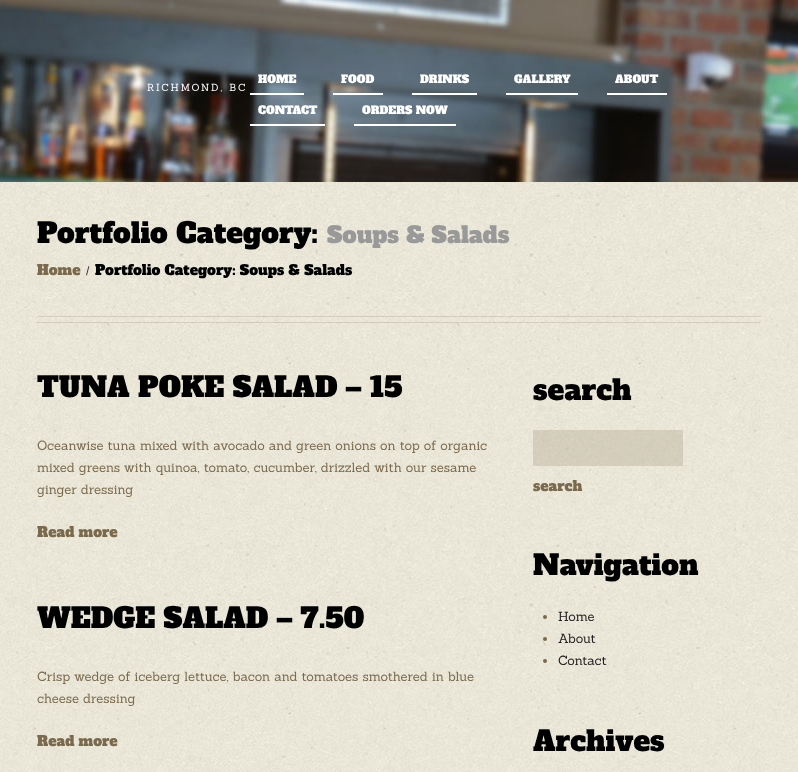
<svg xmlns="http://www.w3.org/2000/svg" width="798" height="772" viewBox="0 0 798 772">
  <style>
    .t1 { font: 10px Sanchez; letter-spacing: 2px; fill: #fff; }
    .t2 { font: 11px Alfa Slab One; fill: #fff; }
    .t3 { font: 28px Alfa Slab One; fill: #000; }
    .t4 { font: 22.75px Alfa Slab One; fill: #999; }
    .t5 { font: 14px Alfa Slab One; fill: #7a694c; }
    .t6 { font: 12px Liberation Sans; fill: #333; }
    .t7 { font: 14px Alfa Slab One; fill: #000; }
    .t8 { font: 13px Sanchez; fill: #7a694c; }
    .t9 { font: 13px Sanchez; fill: #222; }
  </style>
  <rect width="100%" height="100%" fill="#fff"/>
  <image x="0" y="0" width="798" height="182" href="images/1.png"/>
  <text x="147" y="91" class="t1">RICHMOND, BC</text>
  <text x="258" y="83" class="t2">HOME</text>
  <rect x="250" y="93" width="54" height="2" fill="#fff"/>
  <text x="341" y="83" class="t2">FOOD</text>
  <rect x="333" y="93" width="50" height="2" fill="#fff"/>
  <text x="420" y="83" class="t2">DRINKS</text>
  <rect x="412" y="93" width="65" height="2" fill="#fff"/>
  <text x="514" y="83" class="t2">GALLERY</text>
  <rect x="506" y="93" width="72" height="2" fill="#fff"/>
  <text x="615" y="83" class="t2">ABOUT</text>
  <rect x="607" y="93" width="60" height="2" fill="#fff"/>
  <text x="258" y="114" class="t2">CONTACT</text>
  <rect x="250" y="124" width="75" height="2" fill="#fff"/>
  <text x="362" y="114" class="t2">ORDERS NOW</text>
  <rect x="354" y="124" width="102" height="2" fill="#fff"/>
  <image x="0" y="182" width="798" height="590" href="images/2.png"/>
  <rect x="37" y="322" width="724" height="1" fill="#7a694c33"/>
  <text x="37" y="243" class="t3">Portfolio Category:</text>
  <text x="327" y="243" class="t4">Soups &amp; Salads</text>
  <rect x="37" y="316" width="724" height="1" fill="#7a694c33"/>
  <text x="37" y="275" class="t5">Home</text>
  <text x="86" y="275" class="t6">/</text>
  <text x="95" y="275" class="t7">Portfolio Category: Soups &amp; Salads</text>
  <text x="37" y="397" class="t3">TUNA POKE SALAD – 15</text>
  <text x="37" y="450" class="t8">Oceanwise tuna mixed with avocado and green onions on top of organic</text>
  <text x="37" y="472" class="t8">mixed greens with quinoa, tomato, cucumber, drizzled with our sesame</text>
  <text x="37" y="494" class="t8">ginger dressing</text>
  <text x="37" y="537" class="t5">Read more</text>
  <text x="37" y="628" class="t3">WEDGE SALAD – 7.50</text>
  <text x="37" y="681" class="t8">Crisp wedge of iceberg lettuce, bacon and tomatoes smothered in blue</text>
  <text x="37" y="703" class="t8">cheese dressing</text>
  <text x="37" y="746" class="t5">Read more</text>
  <text x="533" y="400" class="t3">search</text>
  <rect x="533" y="430" width="150" height="36" fill="#b5ab9669"/>
  <text x="533" y="491" class="t5">search</text>
  <text x="533" y="575" class="t3">Navigation</text>
  <circle cx="545" cy="617" r="2" fill="#7a694c"/>
  <text x="558" y="621" class="t9">Home</text>
  <circle cx="545" cy="639" r="2" fill="#7a694c"/>
  <text x="558" y="643" class="t9">About</text>
  <circle cx="545" cy="661" r="2" fill="#7a694c"/>
  <text x="558" y="665" class="t9">Contact</text>
  <text x="533" y="751" class="t3">Archives</text>
</svg>
